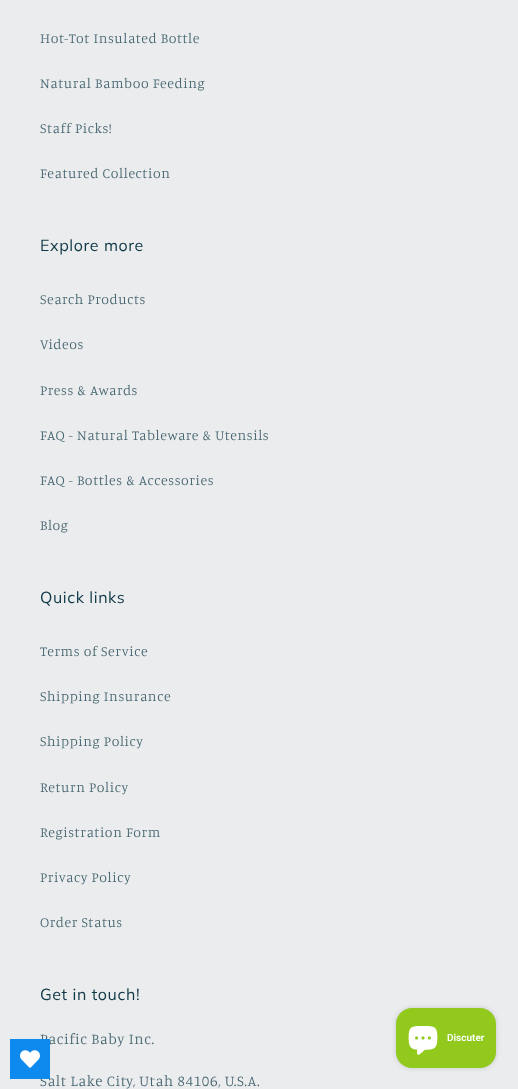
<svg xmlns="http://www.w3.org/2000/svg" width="518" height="1089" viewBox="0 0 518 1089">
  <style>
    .t1 { font: 300 14px Manuale; letter-spacing: 0.6px; fill: #476671; }
    .t2 { font: 16px Muli; letter-spacing: 0.6px; fill: #103948; }
    .t3 { font: 300 15px Manuale; letter-spacing: 0.6px; fill: #476671; }
    .t4 { font: 600 10px Roboto; fill: #fff; }
  </style>
  <rect width="100%" height="100%" fill="#ebeced"/>
  <text x="40" y="43" class="t1">Hot-Tot Insulated Bottle</text>
  <text x="40" y="88" class="t1">Natural Bamboo Feeding</text>
  <text x="40" y="133" class="t1">Staff Picks!</text>
  <text x="40" y="178" class="t1">Featured Collection</text>
  <text x="40" y="251" class="t2">Explore more</text>
  <text x="40" y="304" class="t1">Search Products</text>
  <text x="40" y="349" class="t1">Videos</text>
  <text x="40" y="395" class="t1">Press &amp; Awards</text>
  <text x="40" y="440" class="t1">FAQ - Natural Tableware &amp; Utensils</text>
  <text x="40" y="485" class="t1">FAQ - Bottles &amp; Accessories</text>
  <text x="40" y="530" class="t1">Blog</text>
  <text x="40" y="603" class="t2">Quick links</text>
  <text x="40" y="656" class="t1">Terms of Service</text>
  <text x="40" y="701" class="t1">Shipping Insurance</text>
  <text x="40" y="746" class="t1">Shipping Policy</text>
  <text x="40" y="792" class="t1">Return Policy</text>
  <text x="40" y="837" class="t1">Registration Form</text>
  <text x="40" y="882" class="t1">Privacy Policy</text>
  <text x="40" y="927" class="t1">Order Status</text>
  <text x="40" y="1000" class="t2">Get in touch!</text>
  <text x="40" y="1044" class="t3">Pacific Baby Inc.</text>
  <text x="40" y="1086" class="t3">Salt Lake City, Utah 84106, U.S.A.</text>
  <rect x="396" y="1008" width="100" height="60" rx="16" fill="#00000026" filter="blur(2.5px)"/>
  <rect x="396" y="1008" width="100" height="60" rx="16" fill="#91c91c"/>
  <image x="408" y="1026" width="30" height="29" href="images/1.png"/>
  <text x="447" y="1041" class="t4">Discuter</text>
  <rect x="10" y="1039" width="40" height="40" fill="#0e8aef"/>
  <image x="20" y="1050" width="20" height="18" href="images/2.png"/>
</svg>
